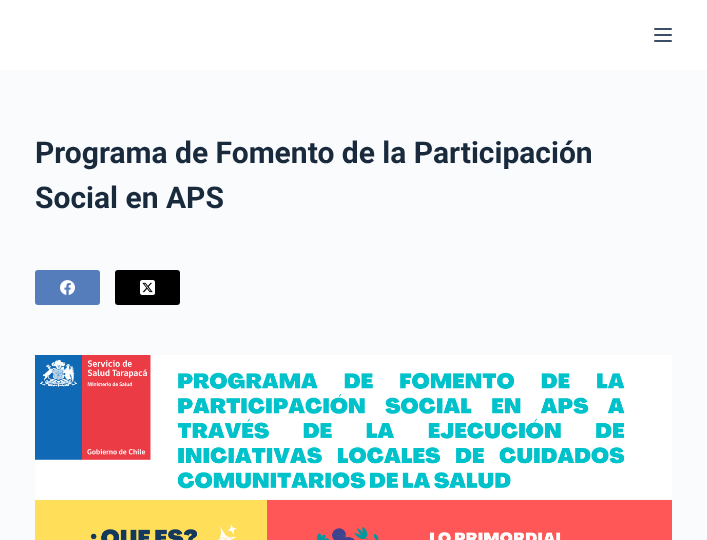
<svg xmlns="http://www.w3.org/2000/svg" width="707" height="540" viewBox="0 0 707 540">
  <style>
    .t1 { font: bold 30px Roboto; fill: #192a3d; }
  </style>
  <rect width="100%" height="100%" fill="#fafbfc"/>
  <rect x="0" y="0" width="707" height="70" fill="#fff"/>
  <rect x="654" y="28" width="18" height="2" rx="1" fill="#3a4f66"/>
  <rect x="654" y="34" width="18" height="2" rx="1" fill="#3a4f66"/>
  <rect x="654" y="40" width="18" height="2" rx="1" fill="#3a4f66"/>
  <text x="35" y="163" class="t1">Programa de Fomento de la Participación</text>
  <text x="35" y="208" class="t1">Social en APS</text>
  <rect x="35" y="270" width="65" height="35" rx="3" fill="#557dbc"/>
  <image x="60" y="280" width="15" height="15" href="images/1.png"/>
  <rect x="115" y="270" width="65" height="35" rx="3" fill="#000"/>
  <image x="140" y="280" width="15" height="15" href="images/2.png"/>
  <image x="35" y="355" width="637" height="185" href="images/3.png"/>
</svg>
